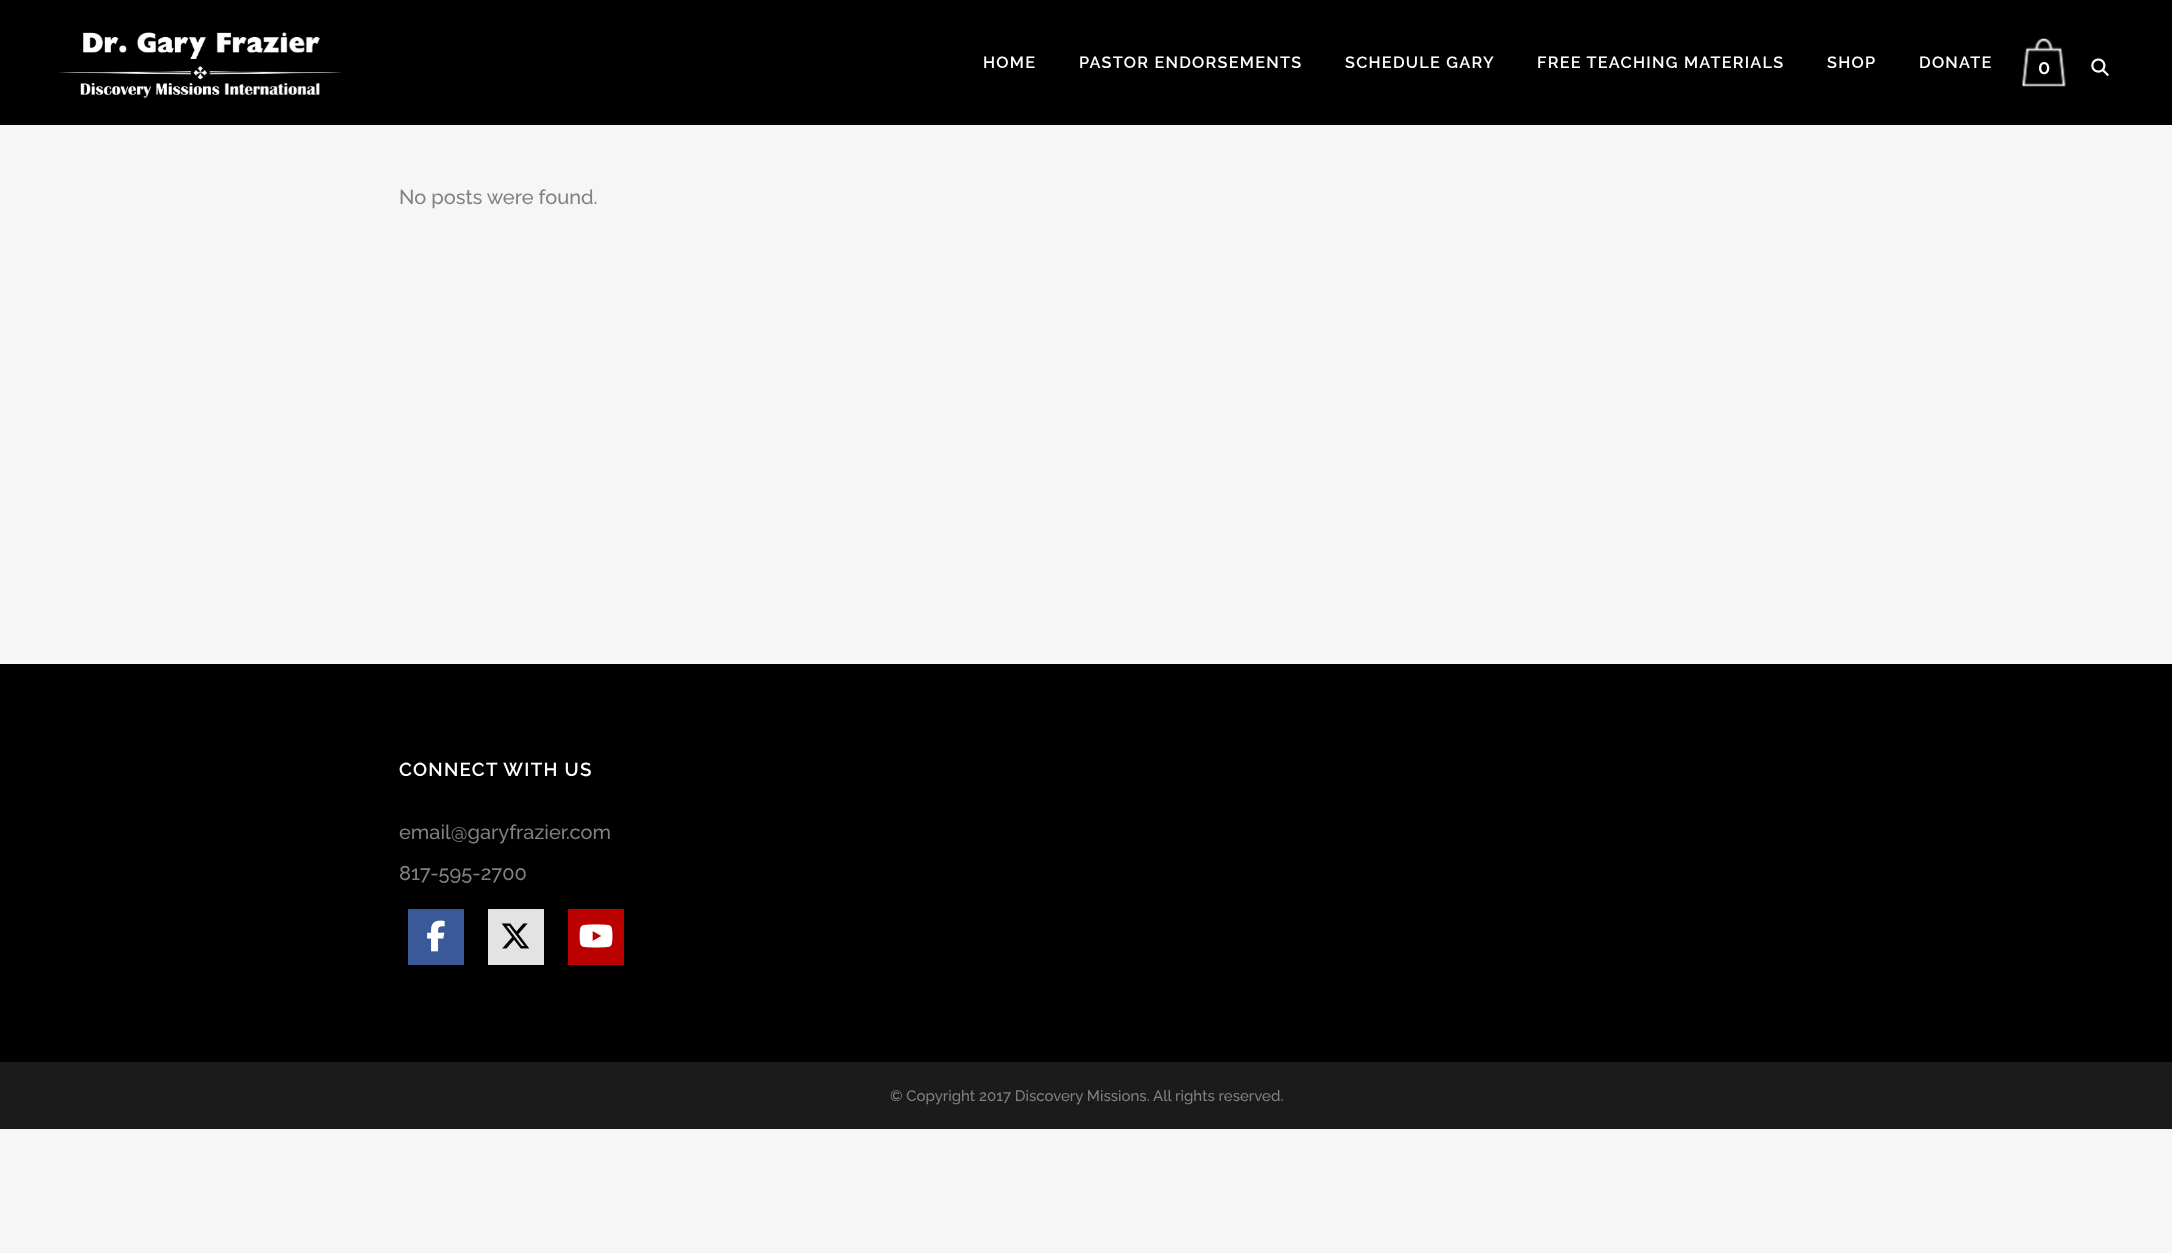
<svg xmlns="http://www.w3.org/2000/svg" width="2172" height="1253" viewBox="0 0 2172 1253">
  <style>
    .t1 { font: 600 16.25px Raleway; letter-spacing: 1.25px; fill: #fff; }
    .t2 { font: 600 20px Raleway; fill: #fff; }
    .t3 { font: 500 20px Raleway; fill: #818181; }
    .t4 { font: 600 18.75px Raleway; letter-spacing: 1.25px; fill: #fff; }
    .t5 { font: 500 15px Raleway; fill: #818181; }
  </style>
  <rect width="100%" height="100%" fill="#f6f6f6"/>
  <rect x="0" y="0" width="2172" height="125" fill="#000"/>
  <image x="58" y="32" width="284" height="66" href="images/1.png"/>
  <text x="983" y="68" class="t1">HOME</text>
  <text x="1079" y="68" class="t1">PASTOR ENDORSEMENTS</text>
  <text x="1345" y="68" class="t1">SCHEDULE GARY</text>
  <text x="1537" y="68" class="t1">FREE TEACHING MATERIALS</text>
  <text x="1827" y="68" class="t1">SHOP</text>
  <text x="1919" y="68" class="t1">DONATE</text>
  <image x="2022" y="38" width="44" height="49" href="images/2.png"/>
  <text x="2038" y="74" class="t2">0</text>
  <image x="2091" y="58" width="18" height="18" href="images/3.png"/>
  <text x="399" y="204" class="t3">No posts were found.</text>
  <rect x="0" y="664" width="2172" height="398" fill="#000"/>
  <text x="399" y="776" class="t4">CONNECT WITH US</text>
  <text x="399" y="839" class="t3">email@garyfrazier.com</text>
  <text x="399" y="880" class="t3">817-595-2700</text>
  <rect x="408" y="909" width="56" height="56" rx="0.5" fill="#3b5998"/>
  <image x="427" y="920" width="18" height="32" href="images/4.png"/>
  <rect x="488" y="909" width="56" height="56" rx="0.5" fill="#e3e3e3"/>
  <image x="501" y="923" width="29" height="26" href="images/5.png"/>
  <rect x="568" y="909" width="56" height="56" rx="0.5" fill="#b00"/>
  <image x="579" y="924" width="34" height="24" href="images/6.png"/>
  <rect x="0" y="1062" width="2172" height="67" fill="#1b1b1b"/>
  <text x="890" y="1101" class="t5">© Copyright 2017 Discovery Missions. All rights reserved.</text>
</svg>
